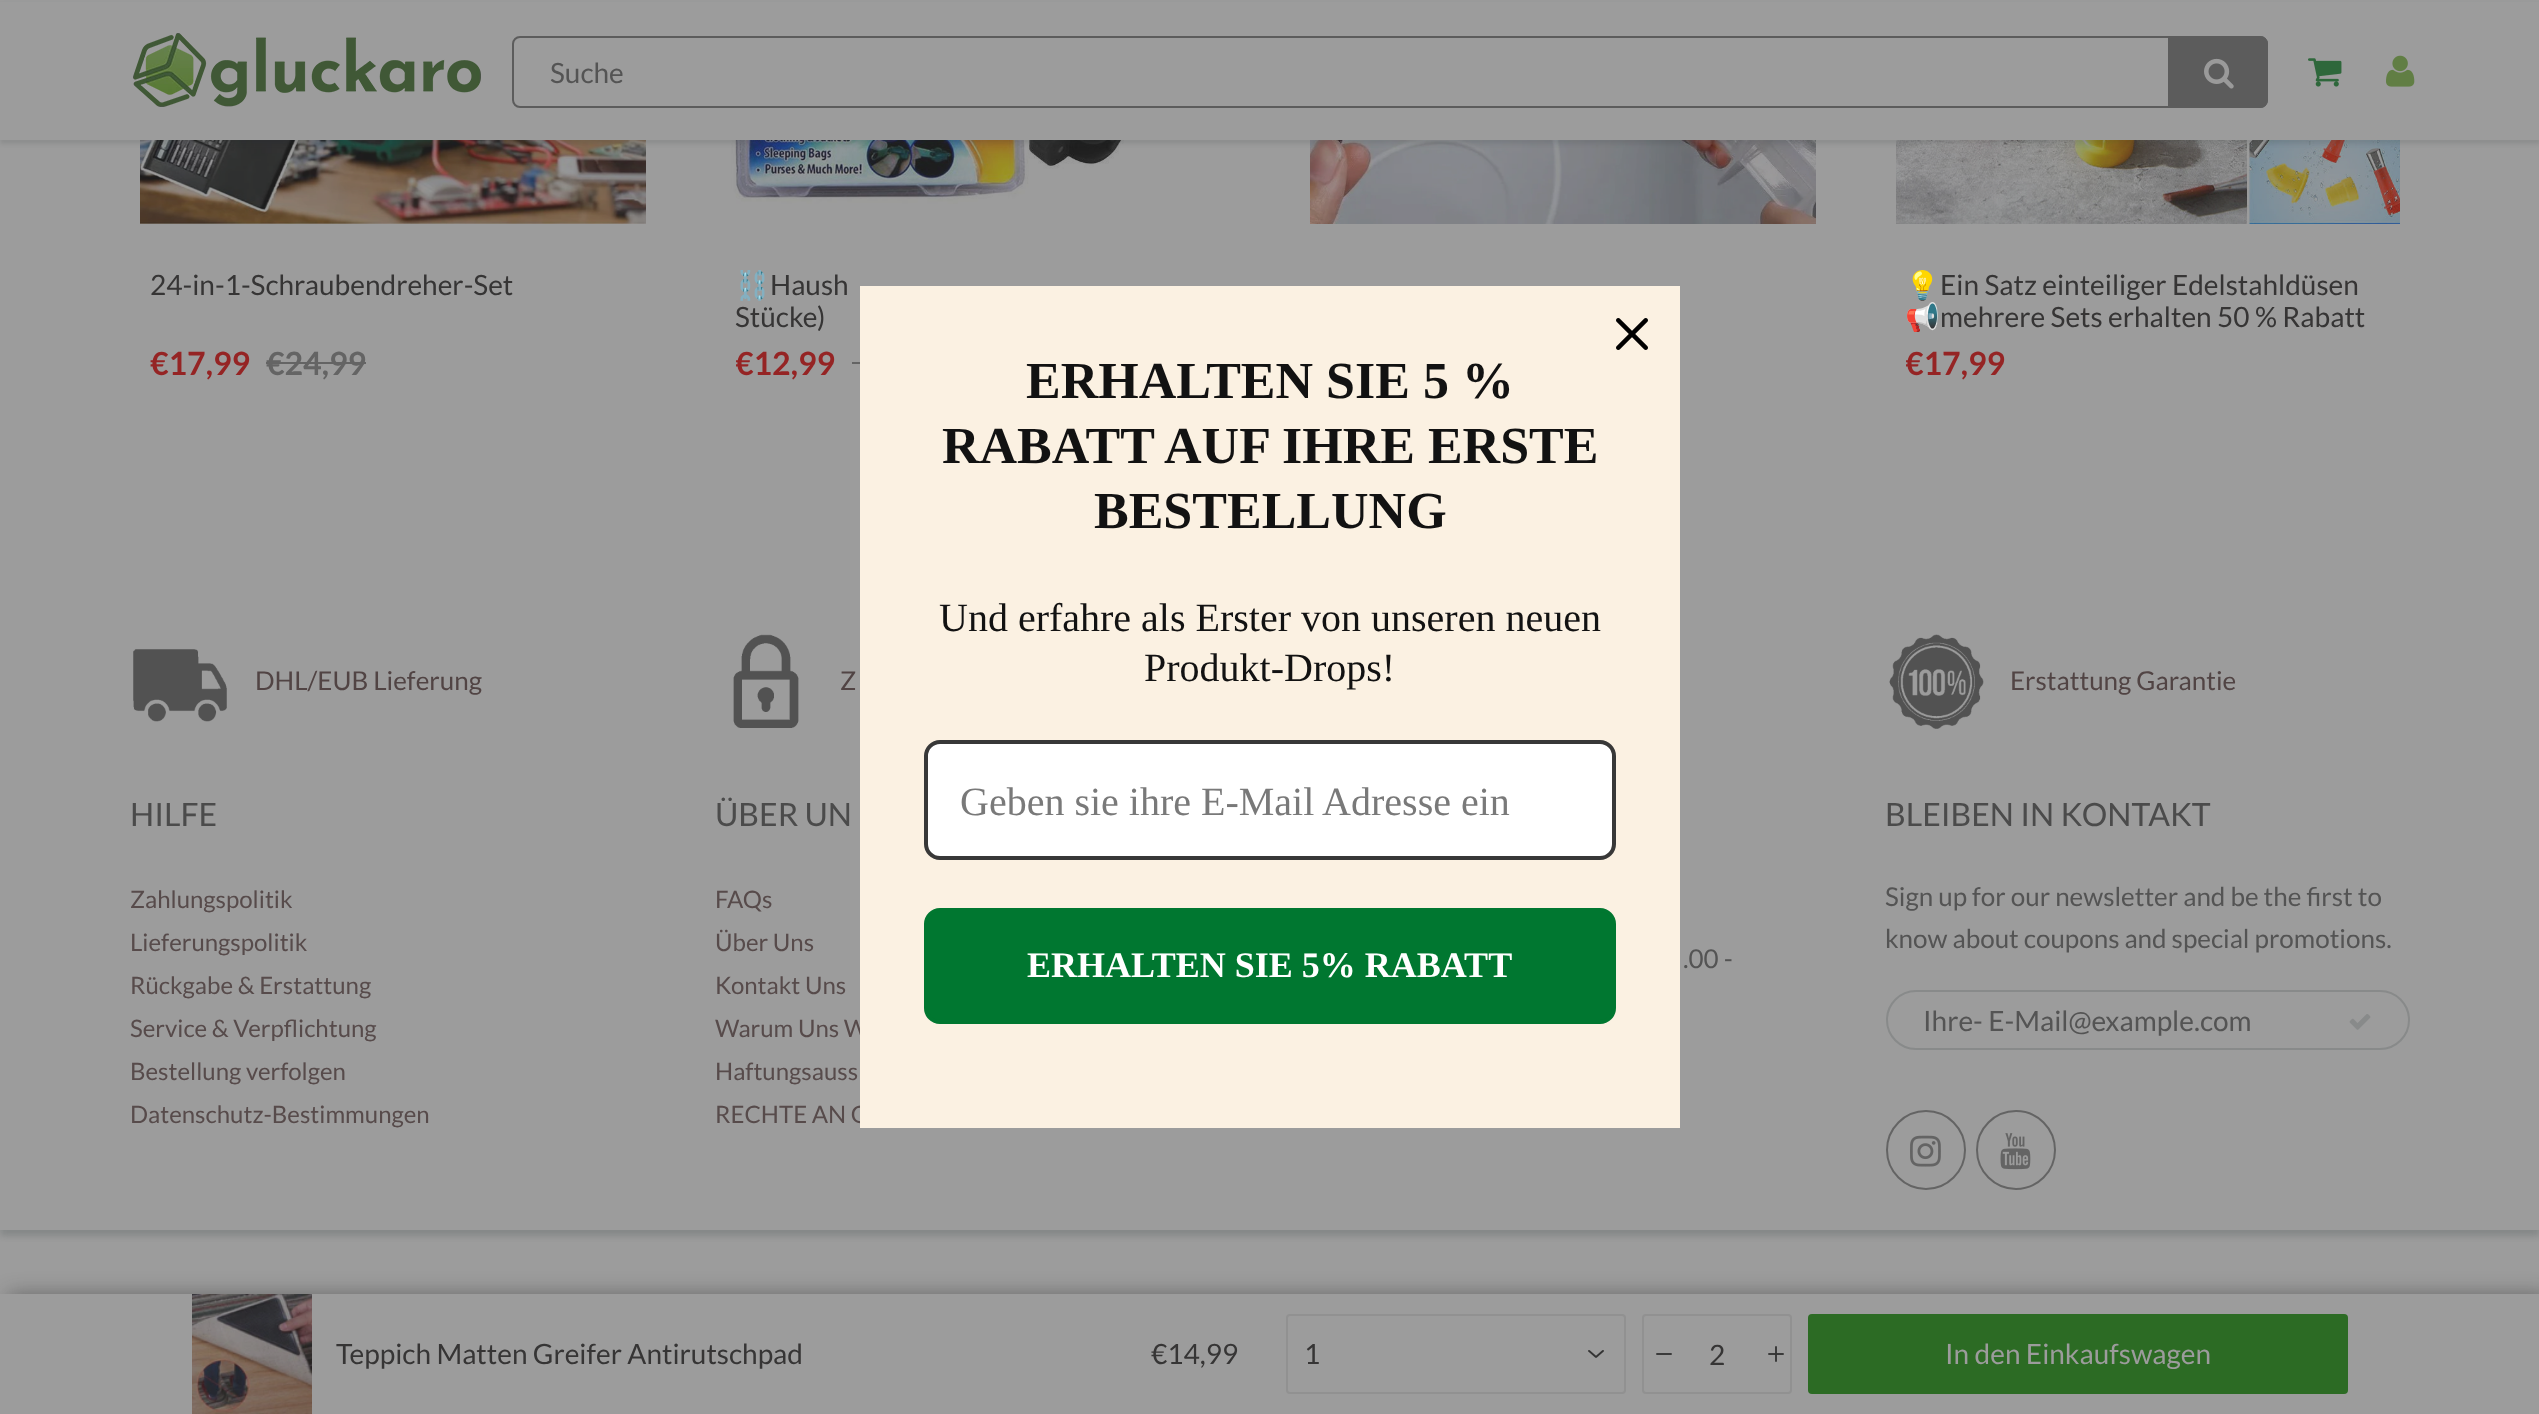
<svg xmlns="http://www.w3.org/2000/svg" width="2539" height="1414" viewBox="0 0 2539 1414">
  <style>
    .t1 { font: 28px Lato; fill: #545454; }
    .t2 { font: 28px Lato; fill: #363535; }
    .t3 { font: bold 32px Lato; fill: #952424; }
    .t4 { font: bold 32px Lato; fill: #646464; }
    .t5 { font: 28px Noto Color Emoji; fill: #363535; }
    .t6 { font: 26px Lato; fill: #514444; }
    .t7 { font: 32px Lato; fill: #4b4b4b; }
    .t8 { font: 24px Lato; fill: #574b4b; }
    .t9 { font: 26px Lato; fill: #545454; }
    .t10 { font: bold 52px Liberation Serif; fill: #121212; }
    .t11 { font: 40px Liberation Serif; fill: #121212; }
    .t12 { font: 40px Liberation Serif; fill: #797979; }
    .t13 { font: bold 36px Liberation Serif; fill: #fff; }
    .t14 { font: 28px Lato; fill: #9c9c9c; }
  </style>
  <defs>
    <clipPath id="clip1"><rect x="736" y="268" width="484" height="64"/></clipPath>
    <clipPath id="clip2"><rect x="736" y="342" width="484" height="40"/></clipPath>
    <clipPath id="clip3"><rect x="1906" y="268" width="484" height="64"/></clipPath>
    <clipPath id="clip4"><rect x="1906" y="342" width="484" height="40"/></clipPath>
    <clipPath id="clip5"><rect x="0" y="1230" width="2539" height="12"/></clipPath>
  </defs>
  <rect width="100%" height="100%" fill="#9c9c9c"/>
  <image x="1310" y="140" width="506" height="84" href="images/5.png"/>
  <image x="140" y="140" width="506" height="84" href="images/6.png"/>
  <image x="726" y="140" width="504" height="64" href="images/7.png"/>
  <image x="1896" y="140" width="504" height="84" href="images/8.png"/>
  <rect x="0" y="4" width="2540" height="140" fill="#22292a1f" filter="blur(2px)"/>
  <rect x="0" y="2" width="2539" height="138" fill="#9c9c9c"/>
  <image x="133" y="33" width="348" height="74" href="images/1.png"/>
  <rect x="513" y="37" width="1754" height="70" rx="7" fill="none" stroke="#5c5c5c" stroke-width="2"/>
  <text x="550" y="83" class="t1">Suche</text>
  <path d="M2169 37H2260C2264 37 2267 40 2267 44V100C2267 104 2264 107 2260 107H2169Z" fill="#5c5c5c" stroke="#5c5c5c" stroke-width="2"/>
  <image x="2204" y="58" width="30" height="31" href="images/2.png"/>
  <image x="2308" y="58" width="34" height="29" href="images/3.png"/>
  <image x="2386" y="55" width="29" height="32" href="images/4.png"/>
  <text x="150" y="295" class="t2">24-in-1-Schraubendreher-Set</text>
  <text x="150" y="375" class="t3">€17,99</text>
  <text x="266" y="375" class="t4">€24,99</text>
  <rect x="266" y="362" width="100" height="2" fill="#646464"/>
  <g clip-path="url(#clip1)">
    <text x="735" y="295" class="t5">⛓️</text>
  </g>
  <text x="770" y="295" class="t2">Haush</text>
  <text x="735" y="327" class="t2">Stücke)</text>
  <g clip-path="url(#clip2)">
    <text x="735" y="375" class="t3">€12,99</text>
  </g>
  <rect x="852" y="362" width="8" height="2" fill="#646464"/>
  <g clip-path="url(#clip3)">
    <text x="1905" y="295" class="t5">💡</text>
  </g>
  <text x="1940" y="295" class="t2">Ein Satz einteiliger Edelstahldüsen</text>
  <g clip-path="url(#clip3)">
    <text x="1905" y="327" class="t5">📢</text>
  </g>
  <text x="1940" y="327" class="t2">mehrere Sets erhalten 50 % Rabatt</text>
  <g clip-path="url(#clip4)">
    <text x="1905" y="375" class="t3">€17,99</text>
  </g>
  <image x="133" y="649" width="94" height="73" href="images/9.png"/>
  <text x="255" y="690" class="t6">DHL/EUB Lieferung</text>
  <image x="733" y="634" width="66" height="94" href="images/10.png"/>
  <text x="840" y="690" class="t6">Z</text>
  <image x="1889" y="634" width="95" height="95" href="images/11.png"/>
  <text x="2010" y="690" class="t6">Erstattung Garantie</text>
  <g clip-path="url(#clip5)">
    <rect x="0" y="768" width="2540" height="468" fill="#858888" filter="blur(3px)"/>
  </g>
  <text x="130" y="826" class="t7">HILFE</text>
  <text x="130" y="908" class="t8">Zahlungspolitik</text>
  <text x="130" y="951" class="t8">Lieferungspolitik</text>
  <text x="130" y="994" class="t8">Rückgabe &amp; Erstattung</text>
  <text x="130" y="1037" class="t8">Service &amp; Verpflichtung</text>
  <text x="130" y="1080" class="t8">Bestellung verfolgen</text>
  <text x="130" y="1123" class="t8">Datenschutz-Bestimmungen</text>
  <text x="715" y="826" class="t7">ÜBER UN</text>
  <text x="715" y="908" class="t8">FAQs</text>
  <text x="715" y="951" class="t8">Über Uns</text>
  <text x="715" y="994" class="t8">Kontakt Uns</text>
  <text x="715" y="1037" class="t8">Warum Uns W</text>
  <text x="715" y="1080" class="t8">Haftungsauss</text>
  <text x="715" y="1123" class="t8">RECHTE AN G</text>
  <text x="1683" y="968" class="t9">.00 -</text>
  <text x="1885" y="826" class="t7">BLEIBEN IN KONTAKT</text>
  <text x="1885" y="906" class="t9">Sign up for our newsletter and be the first to</text>
  <text x="1885" y="948" class="t9">know about coupons and special promotions.</text>
  <rect x="1887" y="991" width="522" height="58" rx="29" fill="none" stroke="#888a8a" stroke-width="2"/>
  <text x="1923" y="1031" class="t1">Ihre- E-Mail@example.com</text>
  <image x="2349" y="1014" width="22" height="16" href="images/12.png"/>
  <circle cx="1926" cy="1150" r="39" fill="none" stroke="#646464" stroke-width="2"/>
  <image x="1910" y="1135" width="31" height="32" href="images/13.png"/>
  <circle cx="2016" cy="1150" r="39" fill="none" stroke="#646464" stroke-width="2"/>
  <image x="2000" y="1133" width="31" height="37" href="images/14.png"/>
  <rect x="860" y="286" width="820" height="842" fill="#fbf1e2"/>
  <image x="1616" y="318" width="32" height="32" href="images/15.png"/>
  <text x="1026" y="398" class="t10">ERHALTEN SIE 5 %</text>
  <text x="942" y="463" class="t10">RABATT AUF IHRE ERSTE</text>
  <text x="1094" y="528" class="t10">BESTELLUNG</text>
  <text x="939" y="631" class="t11">Und erfahre als Erster von unseren neuen</text>
  <text x="1144" y="681" class="t11">Produkt-Drops!</text>
  <rect x="926" y="742" width="688" height="116" rx="14" fill="#fff" stroke="#383838" stroke-width="4"/>
  <text x="960" y="815" class="t12">Geben sie ihre E-Mail Adresse ein</text>
  <rect x="926" y="910" width="688" height="112" rx="14" fill="#007730" stroke="#007730" stroke-width="4"/>
  <text x="1027" y="977" class="t13">ERHALTEN SIE 5% RABATT</text>
  <rect x="8" y="1294" width="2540" height="120" fill="#1c1c1c66" filter="blur(10px)"/>
  <rect x="0" y="1294" width="2539" height="120" fill="#9c9c9c"/>
  <image x="192" y="1294" width="120" height="120" href="images/16.png"/>
  <text x="336" y="1364" class="t2">Teppich Matten Greifer Antirutschpad</text>
  <text x="1151" y="1364" class="t2">€14,99</text>
  <rect x="1287" y="1315" width="338" height="78" rx="3" fill="none" stroke="#919191" stroke-width="2"/>
  <text x="1304" y="1364" class="t2">1</text>
  <image x="1588" y="1350" width="16" height="8" href="images/17.png"/>
  <rect x="1643" y="1315" width="148" height="78" rx="3" fill="none" stroke="#919191" stroke-width="2"/>
  <image x="1656" y="1353" width="16" height="2" href="images/18.png"/>
  <text x="1709" y="1365" class="t2">2</text>
  <image x="1768" y="1346" width="16" height="16" href="images/19.png"/>
  <rect x="1808" y="1314" width="540" height="80" rx="4" fill="#2c6b24"/>
  <text x="1945" y="1364" class="t14">In den Einkaufswagen</text>
</svg>
